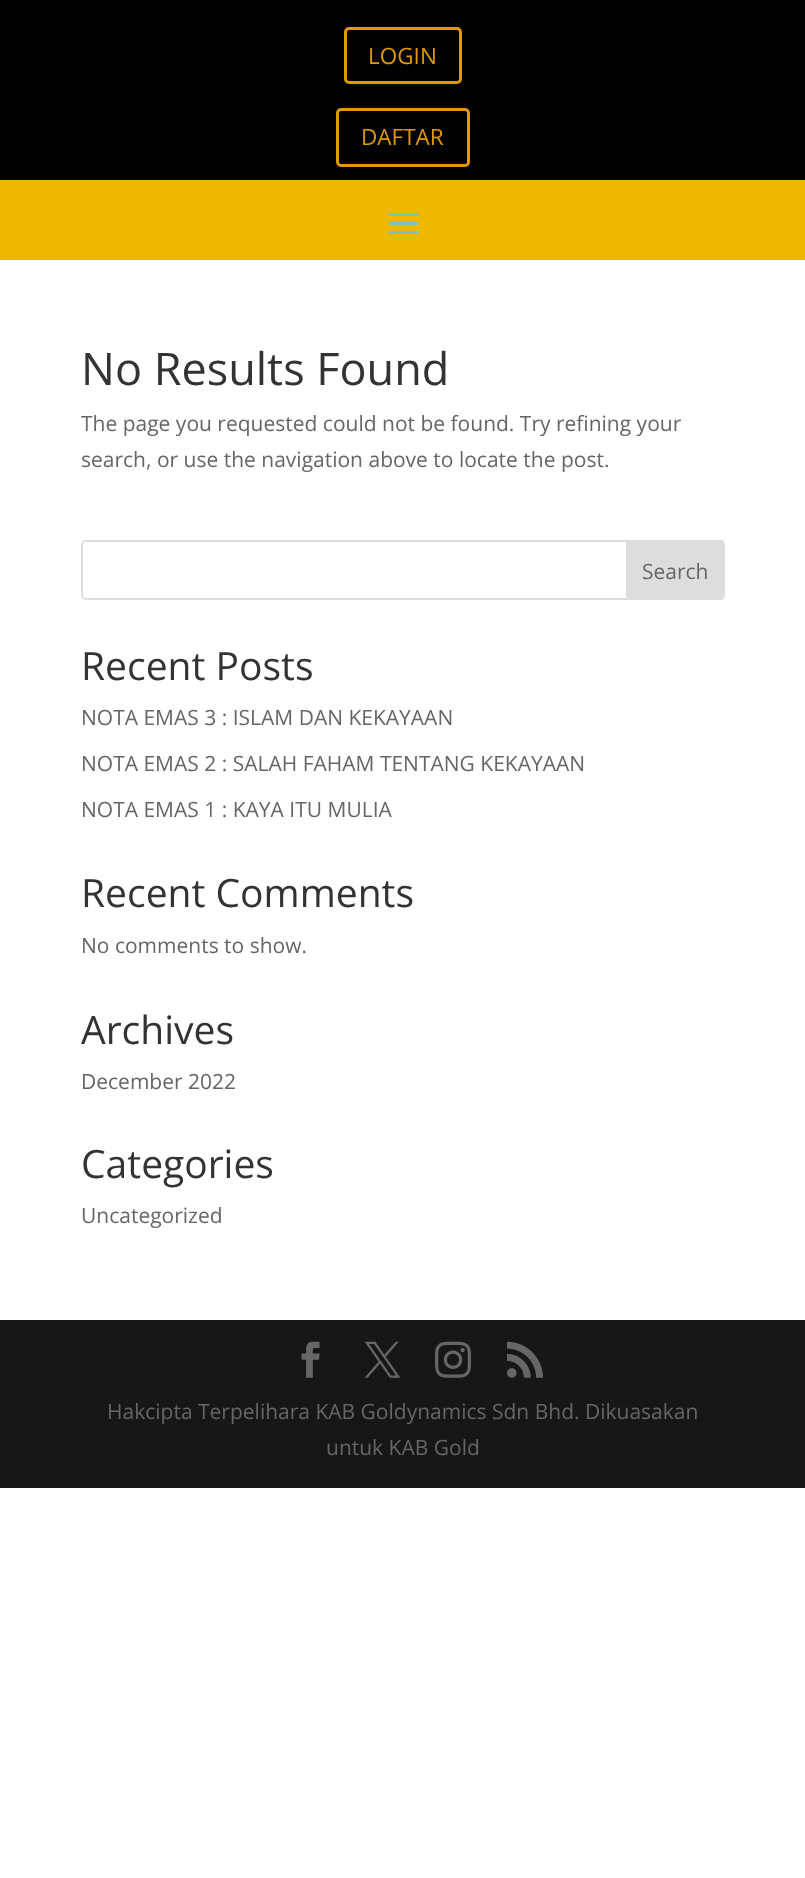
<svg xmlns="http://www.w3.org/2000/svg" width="805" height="1878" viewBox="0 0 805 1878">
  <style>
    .t1 { font: 22.5px Open Sans; fill: #e09900; }
    .t2 { font: 45px Open Sans; fill: #333; }
    .t3 { font: 21px Open Sans; fill: #666; }
    .t4 { font: 39px Open Sans; fill: #333; }
  </style>
  <rect width="100%" height="100%" fill="#fff"/>
  <rect x="0" y="0" width="805" height="180" fill="#000"/>
  <rect x="345.5" y="28.5" width="115" height="54" rx="3.5" fill="none" stroke="#e09900" stroke-width="3"/>
  <text x="368" y="64" class="t1">LOGIN</text>
  <rect x="337.5" y="109.5" width="131" height="56" rx="3.5" fill="none" stroke="#e09900" stroke-width="3"/>
  <text x="361" y="145" class="t1">DAFTAR</text>
  <rect x="0" y="180" width="805" height="80" fill="#edb900"/>
  <image x="388" y="212" width="31" height="22" href="images/1.png"/>
  <text x="81" y="385" class="t2">No Results Found</text>
  <text x="81" y="431" class="t3">The page you requested could not be found. Try refining your</text>
  <text x="81" y="467" class="t3">search, or use the navigation above to locate the post.</text>
  <rect x="82" y="541" width="642" height="58" rx="4" fill="none" stroke="#ddd" stroke-width="2"/>
  <path d="M627 541H720C722 541 724 543 724 545V595C724 597 722 599 720 599H627Z" fill="#ddd" stroke="#ddd" stroke-width="2"/>
  <text x="642" y="579" class="t3">Search</text>
  <text x="81" y="680" class="t4">Recent Posts</text>
  <text x="81" y="725" class="t3">NOTA EMAS 3 : ISLAM DAN KEKAYAAN</text>
  <text x="81" y="771" class="t3">NOTA EMAS 2 : SALAH FAHAM TENTANG KEKAYAAN</text>
  <text x="81" y="817" class="t3">NOTA EMAS 1 : KAYA ITU MULIA</text>
  <text x="81" y="907" class="t4">Recent Comments</text>
  <text x="81" y="953" class="t3">No comments to show.</text>
  <text x="81" y="1044" class="t4">Archives</text>
  <text x="81" y="1089" class="t3">December 2022</text>
  <text x="81" y="1178" class="t4">Categories</text>
  <text x="81" y="1223" class="t3">Uncategorized</text>
  <rect x="0" y="1320" width="805" height="168" fill="#171717"/>
  <image x="301" y="1341" width="19" height="37" href="images/2.png"/>
  <image x="364" y="1341" width="37" height="37" href="images/3.png"/>
  <image x="435" y="1341" width="36" height="37" href="images/4.png"/>
  <image x="507" y="1341" width="36" height="37" href="images/5.png"/>
  <text x="107" y="1419" class="t3">Hakcipta Terpelihara KAB Goldynamics Sdn Bhd. Dikuasakan</text>
  <text x="326" y="1455" class="t3">untuk KAB Gold</text>
</svg>
